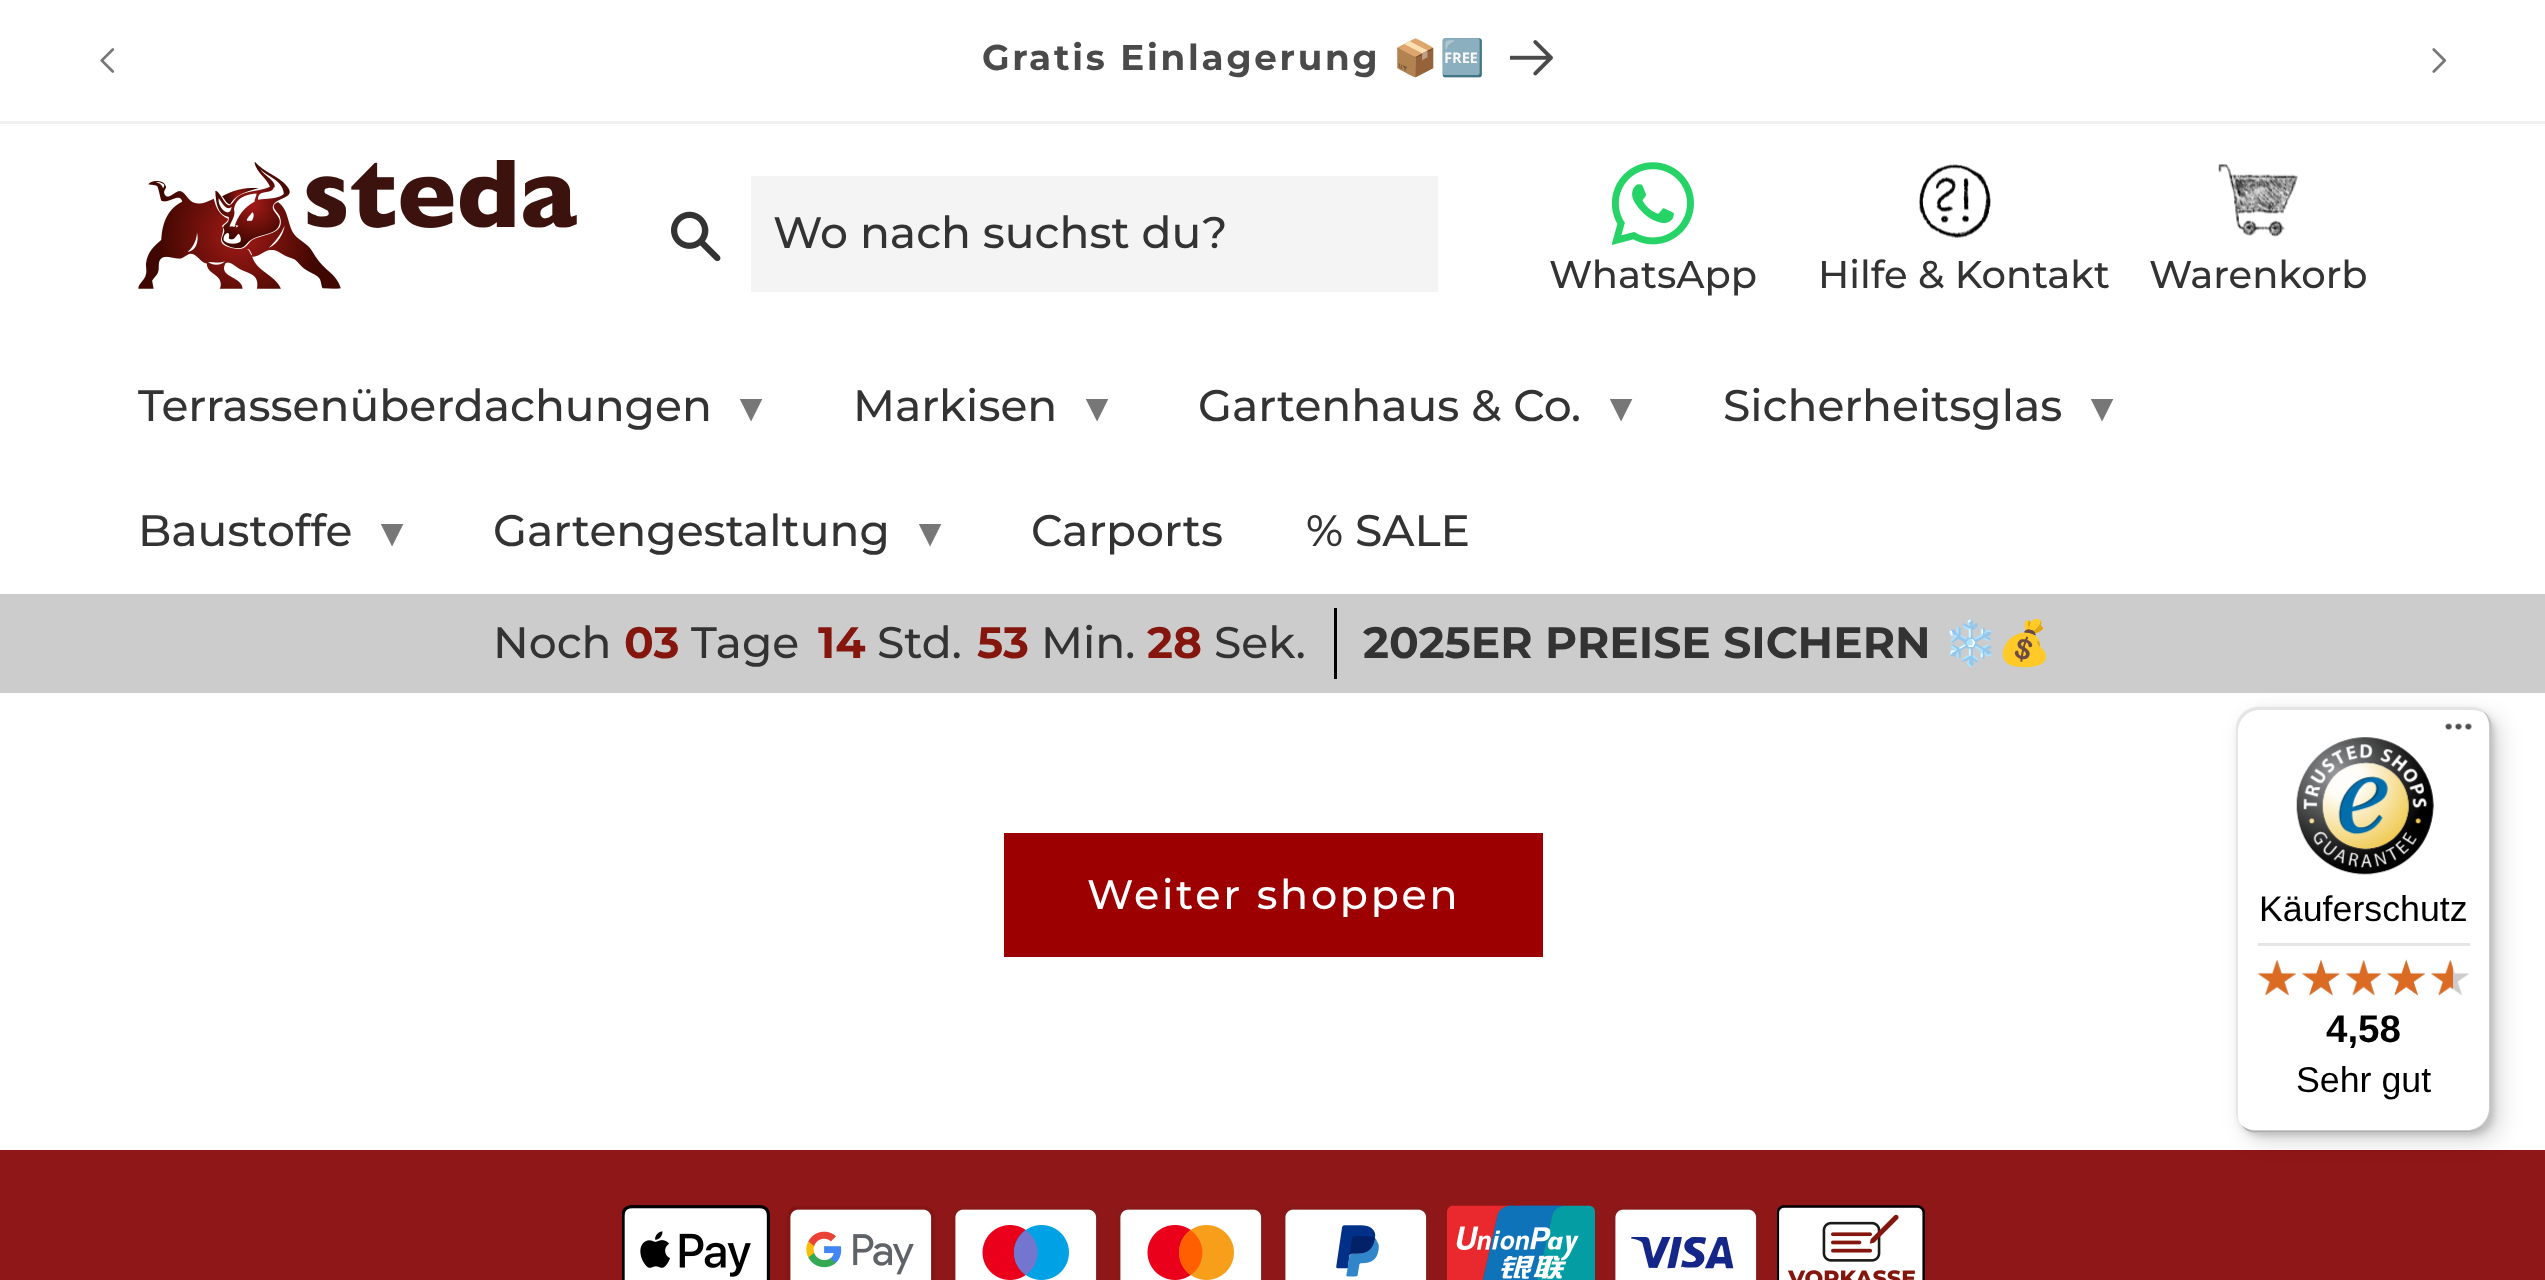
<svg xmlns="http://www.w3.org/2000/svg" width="2545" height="1280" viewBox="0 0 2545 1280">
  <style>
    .t1 { font: bold 35.75px Montserrat; letter-spacing: 2.75px; fill: #4a4a4a; }
    .t2 { font: bold 35.75px Noto Color Emoji; letter-spacing: 2.75px; fill: #4a4a4a; }
    .t3 { font: 500 44px Montserrat; fill: #333; }
    .t4 { font: 500 38.5px Montserrat; fill: #333; }
    .t5 { font: 38.5px Liberation Sans; fill: #777; }
    .t6 { font: bold 44px Montserrat; fill: #85160e; }
    .t7 { font: bold 44px Montserrat; fill: #333; }
    .t8 { font: bold 44px Noto Color Emoji; fill: #333; }
    .t9 { font: 500 41.25px Montserrat; letter-spacing: 2.75px; fill: #fff; }
    .t10 { font: 35.75px Liberation Sans; fill: #000; }
    .t11 { font: bold 38.5px Liberation Sans; fill: #000; }
  </style>
  <rect width="100%" height="100%" fill="#fff"/>
  <rect x="0" y="121" width="2545" height="3" fill="#f1f1f1"/>
  <image x="100" y="48" width="15" height="25" href="images/1.png"/>
  <text x="982" y="70" class="t1">Gratis Einlagerung</text>
  <text x="1393" y="70" class="t2">📦🆓</text>
  <image x="1510" y="40" width="43" height="36" href="images/2.png"/>
  <image x="2432" y="48" width="15" height="25" href="images/3.png"/>
  <image x="138" y="160" width="439" height="129" href="images/4.png"/>
  <image x="671" y="211" width="50" height="51" href="images/5.png"/>
  <rect x="751" y="176" width="687" height="116" fill="#f4f4f4"/>
  <text x="773" y="248" class="t3">Wo nach suchst du?</text>
  <image x="1612" y="162" width="82" height="83" href="images/6.png"/>
  <text x="1549" y="288" class="t4">WhatsApp</text>
  <image x="1919" y="164" width="72" height="75" href="images/7.png"/>
  <text x="1818" y="288" class="t4">Hilfe &amp; Kontakt</text>
  <image x="2218" y="164" width="80" height="73" href="images/8.png"/>
  <text x="2149" y="288" class="t4">Warenkorb</text>
  <text x="138" y="421" class="t3">Terrassenüberdachungen</text>
  <text x="732" y="421" class="t5">▼</text>
  <text x="853" y="421" class="t3">Markisen</text>
  <text x="1078" y="421" class="t5">▼</text>
  <text x="1198" y="421" class="t3">Gartenhaus &amp; Co.</text>
  <text x="1602" y="421" class="t5">▼</text>
  <text x="1723" y="421" class="t3">Sicherheitsglas</text>
  <text x="2083" y="421" class="t5">▼</text>
  <text x="138" y="546" class="t3">Baustoffe</text>
  <text x="373" y="546" class="t5">▼</text>
  <text x="493" y="546" class="t3">Gartengestaltung</text>
  <text x="911" y="546" class="t5">▼</text>
  <text x="1031" y="546" class="t3">Carports</text>
  <text x="1306" y="546" class="t3">% SALE</text>
  <rect x="0" y="1150" width="2545" height="130" fill="#901717"/>
  <rect x="2244" y="715" width="256" height="426" rx="22" fill="#00000026" filter="blur(11px)"/>
  <rect x="0" y="594" width="2545" height="99" fill="#ccc"/>
  <text x="493" y="658" class="t3">Noch</text>
  <text x="624" y="658" class="t6">03</text>
  <text x="691" y="658" class="t3">Tage</text>
  <text x="818" y="658" class="t6">14</text>
  <text x="877" y="658" class="t3">Std.</text>
  <text x="977" y="658" class="t6">53</text>
  <text x="1041" y="658" class="t3">Min.</text>
  <text x="1147" y="658" class="t6">28</text>
  <text x="1214" y="658" class="t3">Sek.</text>
  <rect x="1334" y="608" width="3" height="71" fill="#000"/>
  <text x="1363" y="658" class="t7">2025ER PREISE SICHERN</text>
  <text x="1943" y="658" class="t8">❄️💰</text>
  <rect x="1004" y="833" width="539" height="124" fill="#9d0000"/>
  <text x="1087" y="909" class="t9">Weiter shoppen</text>
  <rect x="2239" y="710" width="255" height="426" rx="22" fill="#00000026" filter="blur(3px)"/>
  <rect x="2236" y="707" width="256" height="426" rx="22" fill="#fff"/>
  <path d="M2260 710H2472C2479 710 2485 713 2489 717C2485 711 2478 707 2470 707H2258C2246 707 2236 717 2236 729V1111C2236 1116 2238 1121 2241 1125C2239 1122 2238 1118 2238 1114V732C2238 719 2248 710 2260 710Z" fill="#0000001a"/>
  <path d="M2241 1125C2245 1130 2251 1133 2258 1133H2470C2482 1133 2492 1123 2492 1111V729C2492 722 2489 716 2484 712C2487 716 2489 721 2489 726V1108C2489 1120 2479 1130 2467 1130H2255C2250 1130 2245 1128 2241 1125Z" fill="#00000033"/>
  <path d="M2242 1126C2246 1131 2252 1133 2258 1133H2470C2482 1133 2492 1123 2492 1111V729C2492 722 2489 716 2484 712C2488 716 2490 721 2490 727V1109C2490 1122 2480 1131 2468 1131H2256C2251 1131 2246 1129 2242 1126Z" fill="#32323233"/>
  <path d="M2247 1130C2250 1132 2254 1133 2258 1133H2470C2482 1133 2492 1123 2492 1111V729C2492 722 2489 716 2484 712C2488 716 2490 721 2490 727V1110C2490 1122 2480 1132 2468 1132H2256C2253 1132 2250 1131 2247 1130Z" fill="#ffffff4d"/>
  <image x="2444" y="723" width="28" height="8" href="images/9.png"/>
  <image x="2296" y="737" width="138" height="138" href="images/10.png"/>
  <text x="2259" y="921" class="t10">Käuferschutz</text>
  <rect x="2258" y="943" width="212" height="3" fill="#e5e5e5"/>
  <image x="2257" y="960" width="39" height="36" href="images/11.png"/>
  <image x="2302" y="960" width="38" height="36" href="images/12.png"/>
  <image x="2346" y="960" width="36" height="36" href="images/13.png"/>
  <image x="2387" y="959" width="38" height="37" href="images/14.png"/>
  <image x="2431" y="960" width="38" height="36" href="images/15.png"/>
  <image x="2257" y="959" width="39" height="37" href="images/16.png"/>
  <image x="2302" y="959" width="38" height="37" href="images/17.png"/>
  <image x="2345" y="959" width="37" height="37" href="images/18.png"/>
  <image x="2387" y="959" width="38" height="37" href="images/19.png"/>
  <image x="2431" y="959" width="22" height="37" href="images/20.png"/>
  <text x="2326" y="1042" class="t11">4,58</text>
  <text x="2296" y="1092" class="t10">Sehr gut</text>
  <image x="622" y="1205" width="148" height="75" href="images/21.png"/>
  <image x="787" y="1206" width="148" height="74" href="images/22.png"/>
  <image x="952" y="1206" width="148" height="74" href="images/23.png"/>
  <image x="1117" y="1206" width="148" height="74" href="images/24.png"/>
  <image x="1282" y="1206" width="148" height="74" href="images/25.png"/>
  <image x="1447" y="1205" width="148" height="75" href="images/26.png"/>
  <image x="1612" y="1206" width="148" height="74" href="images/27.png"/>
  <image x="1777" y="1205" width="148" height="75" href="images/28.png"/>
</svg>
